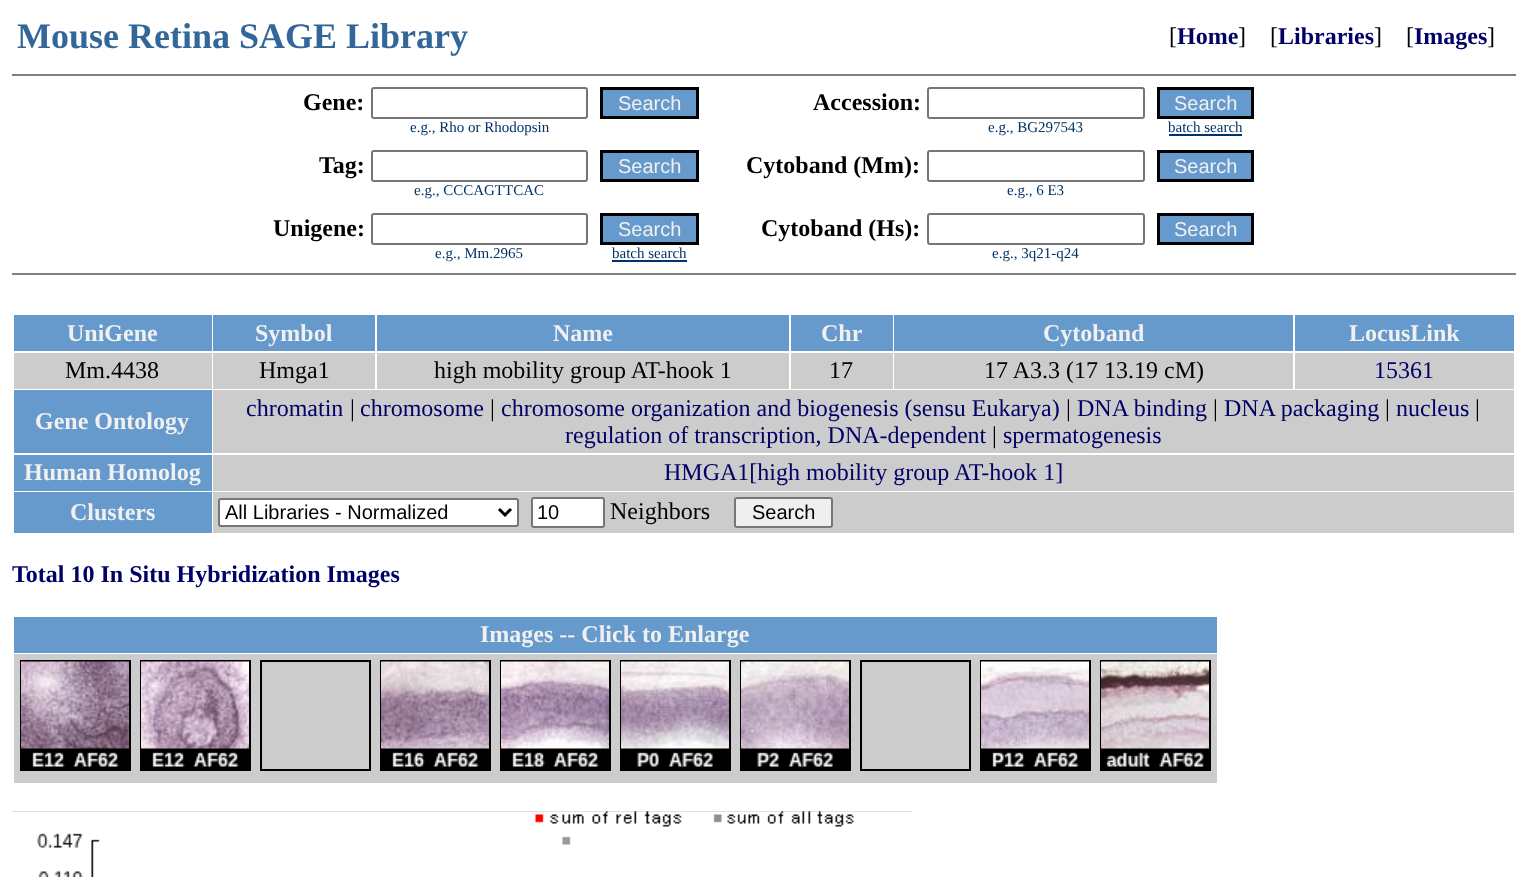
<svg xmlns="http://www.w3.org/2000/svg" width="1526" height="877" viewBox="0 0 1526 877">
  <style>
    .t1 { font: bold 36px Liberation Serif; fill: #369; }
    .t2 { font: 24px Liberation Serif; fill: #000; }
    .t3 { font: bold 24px Liberation Serif; fill: #006; }
    .t4 { font: bold 24px Liberation Serif; fill: #000; }
    .t5 { font: 20px Liberation Sans; fill: #f0f0f0; }
    .t6 { font: 15px Liberation Serif; fill: #036; }
    .t7 { font: bold 24px Liberation Serif; fill: #f0f0f0; }
    .t8 { font: 24px Liberation Serif; fill: #006; }
    .t9 { font: 20px Liberation Sans; fill: #000; }
  </style>
  <rect width="100%" height="100%" fill="#fff"/>
  <text x="17" y="48" class="t1">Mouse Retina SAGE Library</text>
  <text x="1169" y="44" class="t2">[</text>
  <text x="1177" y="44" class="t3">Home</text>
  <text x="1238" y="44" class="t2" xml:space="preserve">]    [</text>
  <text x="1278" y="44" class="t3">Libraries</text>
  <text x="1374" y="44" class="t2" xml:space="preserve">]    [</text>
  <text x="1414" y="44" class="t3">Images</text>
  <text x="1487" y="44" class="t2">]</text>
  <rect x="12" y="74" width="1504" height="2" fill="#808080"/>
  <text x="303" y="110" class="t4">Gene:</text>
  <rect x="372" y="88" width="215" height="30" rx="2" fill="none" stroke="#767676" stroke-width="2"/>
  <rect x="601.5" y="88.5" width="96" height="29" fill="#69c" stroke="#000" stroke-width="3"/>
  <text x="618" y="110" class="t5">Search</text>
  <text x="813" y="110" class="t4">Accession:</text>
  <rect x="928" y="88" width="216" height="30" rx="2" fill="none" stroke="#767676" stroke-width="2"/>
  <rect x="1158.5" y="88.5" width="94" height="29" fill="#69c" stroke="#000" stroke-width="3"/>
  <text x="1174" y="110" class="t5">Search</text>
  <text x="410" y="132" class="t6">e.g., Rho or Rhodopsin</text>
  <text x="988" y="132" class="t6">e.g., BG297543</text>
  <text x="1168" y="132" class="t6">batch search</text>
  <rect x="1169" y="134" width="73" height="2" fill="#036"/>
  <text x="319" y="173" class="t4">Tag:</text>
  <rect x="372" y="151" width="215" height="30" rx="2" fill="none" stroke="#767676" stroke-width="2"/>
  <rect x="601.5" y="151.5" width="96" height="29" fill="#69c" stroke="#000" stroke-width="3"/>
  <text x="618" y="173" class="t5">Search</text>
  <text x="746" y="173" class="t4">Cytoband (Mm):</text>
  <rect x="928" y="151" width="216" height="30" rx="2" fill="none" stroke="#767676" stroke-width="2"/>
  <rect x="1158.5" y="151.5" width="94" height="29" fill="#69c" stroke="#000" stroke-width="3"/>
  <text x="1174" y="173" class="t5">Search</text>
  <text x="414" y="195" class="t6">e.g., CCCAGTTCAC</text>
  <text x="1007" y="195" class="t6">e.g., 6 E3</text>
  <text x="273" y="236" class="t4">Unigene:</text>
  <rect x="372" y="214" width="215" height="30" rx="2" fill="none" stroke="#767676" stroke-width="2"/>
  <rect x="601.5" y="214.5" width="96" height="29" fill="#69c" stroke="#000" stroke-width="3"/>
  <text x="618" y="236" class="t5">Search</text>
  <text x="761" y="236" class="t4">Cytoband (Hs):</text>
  <rect x="928" y="214" width="216" height="30" rx="2" fill="none" stroke="#767676" stroke-width="2"/>
  <rect x="1158.5" y="214.5" width="94" height="29" fill="#69c" stroke="#000" stroke-width="3"/>
  <text x="1174" y="236" class="t5">Search</text>
  <text x="435" y="258" class="t6">e.g., Mm.2965</text>
  <text x="612" y="258" class="t6">batch search</text>
  <rect x="612" y="260" width="75" height="2" fill="#036"/>
  <text x="992" y="258" class="t6">e.g., 3q21-q24</text>
  <rect x="12" y="273" width="1504" height="2" fill="#808080"/>
  <rect x="14" y="315" width="198" height="36" fill="#69c"/>
  <text x="67" y="341" class="t7">UniGene</text>
  <rect x="213" y="315" width="162" height="36" fill="#69c"/>
  <text x="255" y="341" class="t7">Symbol</text>
  <rect x="377" y="315" width="412" height="36" fill="#69c"/>
  <text x="553" y="341" class="t7">Name</text>
  <rect x="791" y="315" width="102" height="36" fill="#69c"/>
  <text x="821" y="341" class="t7">Chr</text>
  <rect x="894" y="315" width="399" height="36" fill="#69c"/>
  <text x="1043" y="341" class="t7">Cytoband</text>
  <rect x="1295" y="315" width="219" height="36" fill="#69c"/>
  <text x="1349" y="341" class="t7">LocusLink</text>
  <rect x="14" y="353" width="198" height="36" fill="#ccc"/>
  <text x="65" y="378" class="t2">Mm.4438</text>
  <rect x="213" y="353" width="162" height="36" fill="#ccc"/>
  <text x="259" y="378" class="t2">Hmga1</text>
  <rect x="377" y="353" width="412" height="36" fill="#ccc"/>
  <text x="434" y="378" class="t2">high mobility group AT-hook 1</text>
  <rect x="791" y="353" width="102" height="36" fill="#ccc"/>
  <text x="829" y="378" class="t2">17</text>
  <rect x="894" y="353" width="399" height="36" fill="#ccc"/>
  <text x="984" y="378" class="t2">17 A3.3 (17 13.19 cM)</text>
  <rect x="1295" y="353" width="219" height="36" fill="#ccc"/>
  <text x="1374" y="378" class="t8">15361</text>
  <rect x="14" y="390" width="198" height="63" fill="#69c"/>
  <text x="35" y="429" class="t7">Gene Ontology</text>
  <rect x="213" y="390" width="1301" height="63" fill="#ccc"/>
  <text x="246" y="416" class="t8">chromatin</text>
  <text x="350" y="416" class="t2">|</text>
  <text x="360" y="416" class="t8">chromosome</text>
  <text x="490" y="416" class="t2">|</text>
  <text x="501" y="416" class="t8">chromosome organization and biogenesis (sensu Eukarya)</text>
  <text x="1066" y="416" class="t2">|</text>
  <text x="1077" y="416" class="t8">DNA binding</text>
  <text x="1213" y="416" class="t2">|</text>
  <text x="1224" y="416" class="t8">DNA packaging</text>
  <text x="1385" y="416" class="t2">|</text>
  <text x="1396" y="416" class="t8">nucleus</text>
  <text x="1475" y="416" class="t2">|</text>
  <text x="565" y="443" class="t8">regulation of transcription, DNA-dependent</text>
  <text x="992" y="443" class="t2">|</text>
  <text x="1003" y="443" class="t8">spermatogenesis</text>
  <rect x="14" y="455" width="198" height="36" fill="#69c"/>
  <text x="24" y="480" class="t7">Human Homolog</text>
  <rect x="213" y="455" width="1301" height="36" fill="#ccc"/>
  <text x="664" y="480" class="t8">HMGA1[high mobility group AT-hook 1]</text>
  <rect x="14" y="492" width="198" height="41" fill="#69c"/>
  <text x="70" y="520" class="t7">Clusters</text>
  <rect x="213" y="492" width="1301" height="41" fill="#ccc"/>
  <rect x="219" y="499" width="299" height="27" rx="2" fill="#fff" stroke="#767676" stroke-width="2"/>
  <path d="M499 509L505 515L511 509" fill="none" stroke="#000" stroke-width="3"/>
  <text x="225" y="519" class="t9">All Libraries - Normalized</text>
  <rect x="532" y="498" width="72" height="29" rx="2" fill="#fff" stroke="#767676" stroke-width="2"/>
  <text x="537" y="519" class="t9">10</text>
  <text x="610" y="519" class="t2">Neighbors</text>
  <rect x="735" y="498" width="97" height="29" rx="2" fill="#efefef" stroke="#767676" stroke-width="2"/>
  <text x="752" y="519" class="t9">Search</text>
  <text x="12" y="582" class="t3">Total 10 In Situ Hybridization Images</text>
  <rect x="14" y="617" width="1203" height="36" fill="#69c"/>
  <text x="480" y="642" class="t7">Images -- Click to Enlarge</text>
  <rect x="14" y="654" width="1203" height="129" fill="#ccc"/>
  <rect x="21" y="661" width="109" height="109" fill="none" stroke="#000" stroke-width="2"/>
  <rect x="141" y="661" width="109" height="109" fill="none" stroke="#000" stroke-width="2"/>
  <rect x="261" y="661" width="109" height="109" fill="none" stroke="#000" stroke-width="2"/>
  <rect x="381" y="661" width="109" height="109" fill="none" stroke="#000" stroke-width="2"/>
  <rect x="501" y="661" width="109" height="109" fill="none" stroke="#000" stroke-width="2"/>
  <rect x="621" y="661" width="109" height="109" fill="none" stroke="#000" stroke-width="2"/>
  <rect x="741" y="661" width="109" height="109" fill="none" stroke="#000" stroke-width="2"/>
  <rect x="861" y="661" width="109" height="109" fill="none" stroke="#000" stroke-width="2"/>
  <rect x="981" y="661" width="109" height="109" fill="none" stroke="#000" stroke-width="2"/>
  <rect x="1101" y="661" width="109" height="109" fill="none" stroke="#000" stroke-width="2"/>
  <image x="21" y="661" width="108" height="108" href="images/1.png"/>
  <image x="141" y="661" width="108" height="108" href="images/2.png"/>
  <image x="381" y="661" width="108" height="108" href="images/3.png"/>
  <image x="501" y="661" width="108" height="108" href="images/4.png"/>
  <image x="621" y="661" width="108" height="108" href="images/5.png"/>
  <image x="741" y="661" width="108" height="108" href="images/6.png"/>
  <image x="981" y="661" width="108" height="108" href="images/7.png"/>
  <image x="1101" y="661" width="108" height="108" href="images/8.png"/>
  <image x="12" y="811" width="900" height="66" href="images/9.png"/>
</svg>
